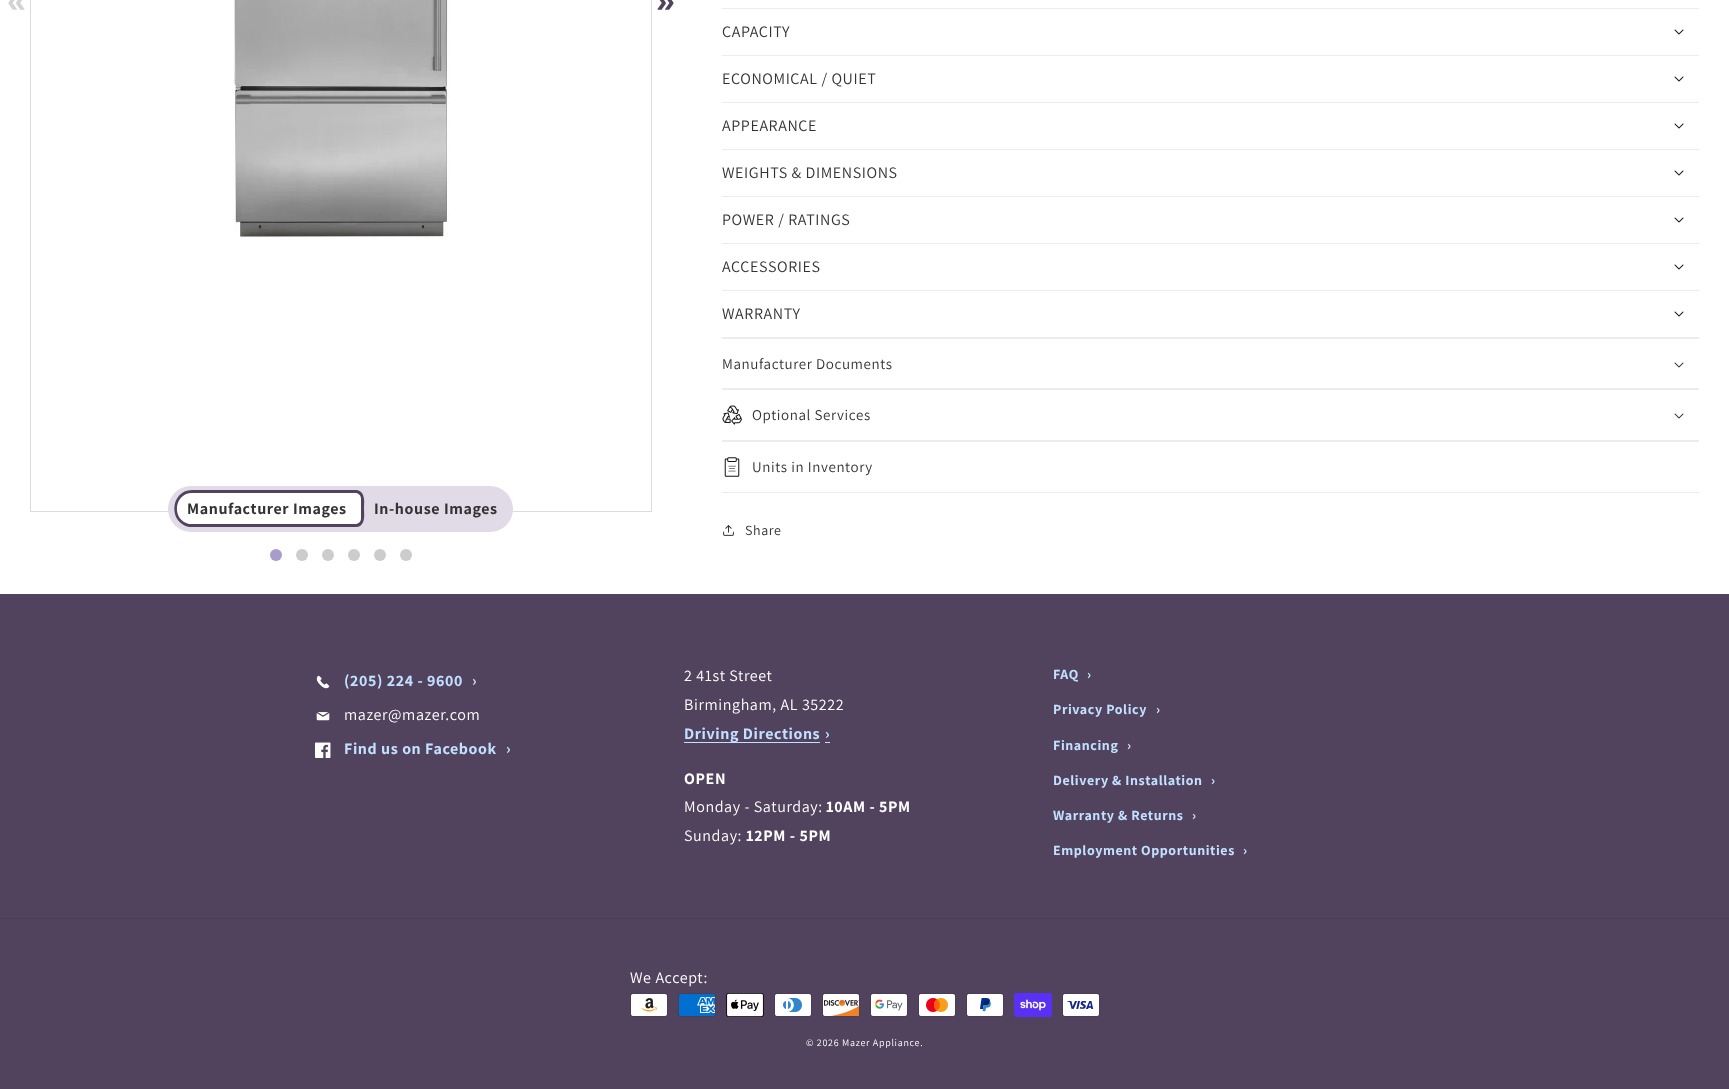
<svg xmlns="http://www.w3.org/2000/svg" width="1729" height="1089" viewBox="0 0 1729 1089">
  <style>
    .t1 { font: bold 34px Liberation Sans; fill: #d4d0d7; }
    .t2 { font: bold 34px Liberation Sans; fill: #51425d; }
    .t3 { font: bold 16px Assistant; letter-spacing: 0.6px; fill: #333; }
    .t4 { font: 16px Assistant; letter-spacing: 0.6px; fill: #333; }
    .t5 { font: 15px Assistant; letter-spacing: 0.6px; fill: #333; }
    .t6 { font: 14px Assistant; letter-spacing: 0.6px; fill: #333; }
    .t7 { font: bold 16px Assistant; letter-spacing: 0.6px; fill: #c2e0ff; }
    .t8 { font: 16px Assistant; letter-spacing: 0.6px; fill: #fff; }
    .t9 { font: bold 16px Assistant; letter-spacing: 0.6px; fill: #fff; }
    .t10 { font: bold 14px Assistant; letter-spacing: 0.6px; fill: #c2e0ff; }
    .t11 { font: 10px Assistant; letter-spacing: 0.7px; fill: #fff; }
  </style>
  <rect width="100%" height="100%" fill="#fff"/>
  <text x="7" y="12" class="t1">«</text>
  <rect x="30.5" y="-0.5" width="621" height="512" fill="none" stroke="#dcdcdc"/>
  <image x="233" y="0" width="216" height="239" href="images/1.png"/>
  <text x="656" y="12" class="t2">»</text>
  <circle cx="276" cy="555" r="6" fill="#a89cc8"/>
  <circle cx="302" cy="555" r="6" fill="#ccc"/>
  <circle cx="328" cy="555" r="6" fill="#ccc"/>
  <circle cx="354" cy="555" r="6" fill="#ccc"/>
  <circle cx="380" cy="555" r="6" fill="#ccc"/>
  <circle cx="406" cy="555" r="6" fill="#ccc"/>
  <rect x="168" y="486" width="345" height="46" rx="23" fill="#e1dae7"/>
  <path d="M192.5 490H347V527H192.5C182.5 527 174 518.5 174 508.5C174 498.5 182.5 490 192.5 490Z" fill="#fff"/>
  <path d="M192 490H347V527H189C167 522 171 490 192 490ZM192 493H347V524H189C171 520 174 493 192 493Z" fill="#51425d" fill-rule="evenodd"/>
  <text x="187" y="514" class="t3">Manufacturer Images</text>
  <path d="M347 490H355.5C360 490 364 494 364 498.5V518.5C364 523 360 527 355.5 527H347Z" fill="#fff"/>
  <path d="M347 490H357C366 492 364 502 364 508.5C364 515 366 525 357 527H347ZM347 493H355.5C358.5 493 361 495.5 361 498.5V518.5C361 521.5 358.5 524 355.5 524H347Z" fill="#51425d" fill-rule="evenodd"/>
  <text x="374" y="514" class="t3">In-house Images</text>
  <rect x="722" y="8" width="977" height="1" fill="#ececec"/>
  <rect x="722" y="55" width="977" height="1" fill="#ececec"/>
  <text x="722" y="37" class="t4">CAPACITY</text>
  <image x="1674" y="29" width="10" height="6" href="images/2.png"/>
  <rect x="722" y="102" width="977" height="1" fill="#ececec"/>
  <text x="722" y="84" class="t4">ECONOMICAL / QUIET</text>
  <image x="1674" y="76" width="10" height="6" href="images/2.png"/>
  <rect x="722" y="149" width="977" height="1" fill="#ececec"/>
  <text x="722" y="131" class="t4">APPEARANCE</text>
  <image x="1674" y="123" width="10" height="6" href="images/2.png"/>
  <rect x="722" y="196" width="977" height="1" fill="#ececec"/>
  <text x="722" y="178" class="t4">WEIGHTS &amp; DIMENSIONS</text>
  <image x="1674" y="170" width="10" height="6" href="images/2.png"/>
  <rect x="722" y="243" width="977" height="1" fill="#ececec"/>
  <text x="722" y="225" class="t4">POWER / RATINGS</text>
  <image x="1674" y="217" width="10" height="6" href="images/2.png"/>
  <rect x="722" y="290" width="977" height="1" fill="#ececec"/>
  <text x="722" y="272" class="t4">ACCESSORIES</text>
  <image x="1674" y="264" width="10" height="6" href="images/2.png"/>
  <rect x="722" y="337" width="977" height="2" fill="#ececec"/>
  <text x="722" y="319" class="t4">WARRANTY</text>
  <image x="1674" y="311" width="10" height="6" href="images/2.png"/>
  <rect x="722" y="388" width="977" height="2" fill="#ececec"/>
  <text x="722" y="369" class="t5">Manufacturer Documents</text>
  <image x="1674" y="362" width="10" height="6" href="images/3.png"/>
  <rect x="722" y="440" width="977" height="2" fill="#ececec"/>
  <image x="722" y="405" width="20" height="20" href="images/4.png"/>
  <text x="752" y="420" class="t5">Optional Services</text>
  <image x="1674" y="413" width="10" height="6" href="images/3.png"/>
  <rect x="722" y="492" width="977" height="1" fill="#ececec"/>
  <image x="724" y="457" width="16" height="20" href="images/5.png"/>
  <text x="752" y="472" class="t5">Units in Inventory</text>
  <image x="723" y="525" width="11" height="11" href="images/6.png"/>
  <text x="745" y="535" class="t6">Share</text>
  <rect x="0" y="594" width="1729" height="495" fill="#51425d"/>
  <image x="316" y="675" width="14" height="14" href="images/7.png"/>
  <text x="344" y="686" class="t7">(205) 224 - 9600</text>
  <text x="472" y="686" class="t7">›</text>
  <image x="316" y="712" width="14" height="9" href="images/8.png"/>
  <text x="344" y="720" class="t8">mazer@mazer.com</text>
  <image x="315" y="742" width="16" height="16" href="images/9.png"/>
  <text x="344" y="754" class="t7">Find us on Facebook</text>
  <text x="506" y="754" class="t7">›</text>
  <text x="684" y="681" class="t8">2 41st Street</text>
  <text x="684" y="710" class="t8">Birmingham, AL 35222</text>
  <rect x="684" y="742" width="136" height="1" fill="#c2e0ff"/>
  <text x="684" y="739" class="t7">Driving Directions</text>
  <text x="825" y="739" class="t7">›</text>
  <rect x="825" y="742" width="5" height="1" fill="#c2e0ff"/>
  <text x="684" y="784" class="t9">OPEN</text>
  <text x="684" y="812" class="t8">Monday - Saturday:</text>
  <text x="826" y="812" class="t9">10AM - 5PM</text>
  <text x="684" y="841" class="t8">Sunday:</text>
  <text x="746" y="841" class="t9">12PM - 5PM</text>
  <text x="1053" y="679" class="t10">FAQ</text>
  <text x="1087" y="679" class="t10">›</text>
  <text x="1053" y="714" class="t10">Privacy Policy</text>
  <text x="1156" y="714" class="t10">›</text>
  <text x="1053" y="750" class="t10">Financing</text>
  <text x="1127" y="750" class="t10">›</text>
  <text x="1053" y="785" class="t10">Delivery &amp; Installation</text>
  <text x="1211" y="785" class="t10">›</text>
  <text x="1053" y="820" class="t10">Warranty &amp; Returns</text>
  <text x="1192" y="820" class="t10">›</text>
  <text x="1053" y="855" class="t10">Employment Opportunities</text>
  <text x="1243" y="855" class="t10">›</text>
  <rect x="0" y="918" width="1729" height="1" fill="#4c3e57"/>
  <text x="630" y="983" class="t8">We Accept:</text>
  <image x="630" y="993" width="38" height="24" href="images/10.png"/>
  <image x="678" y="993" width="38" height="24" href="images/11.png"/>
  <image x="726" y="993" width="38" height="24" href="images/12.png"/>
  <image x="774" y="993" width="38" height="24" href="images/13.png"/>
  <image x="822" y="993" width="38" height="24" href="images/14.png"/>
  <image x="870" y="993" width="38" height="24" href="images/15.png"/>
  <image x="918" y="993" width="38" height="24" href="images/16.png"/>
  <image x="966" y="993" width="38" height="24" href="images/17.png"/>
  <image x="1014" y="993" width="38" height="24" href="images/18.png"/>
  <image x="1062" y="993" width="38" height="24" href="images/19.png"/>
  <text x="806" y="1046" class="t11">© 2026 Mazer Appliance.</text>
</svg>
